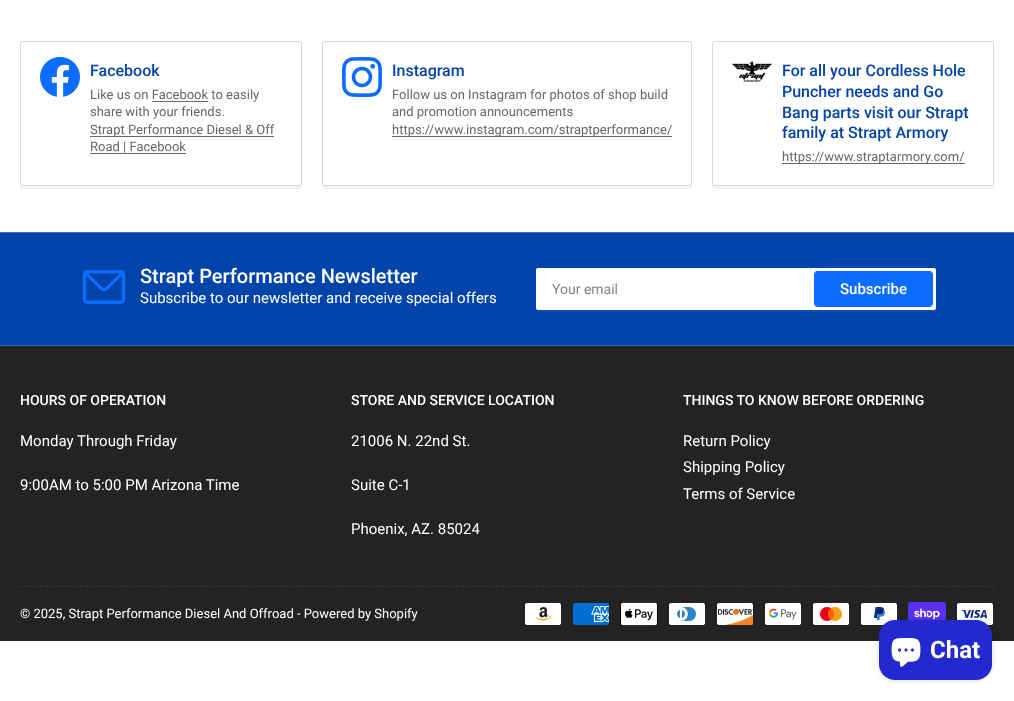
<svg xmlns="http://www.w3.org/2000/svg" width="1014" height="701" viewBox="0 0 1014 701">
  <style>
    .t1 { font: 500 16px Roboto; fill: #0244a9; }
    .t2 { font: 13px Roboto; fill: #676767; }
    .t3 { font: 500 20px Roboto; fill: #fff; }
    .t4 { font: 15px Roboto; fill: #fff; }
    .t5 { font: 14px Roboto; fill: #858585; }
    .t6 { font: 500 15px Roboto; fill: #fff; }
    .t7 { font: 500 14px Roboto; fill: #fff; }
    .t8 { font: 13px Roboto; fill: #fff; }
    .t9 { font: bold 24px Roboto; fill: #fff; }
  </style>
  <rect width="100%" height="100%" fill="#fff"/>
  <path d="M20 184C20 185 19 188 21 189H300C303 189 302 186 302 184C302 185 301 186 300 186H22C21 186 20 185 20 184Z" fill="#f4f4f4"/>
  <rect x="20.5" y="41.5" width="281" height="144" rx="1.5" fill="none" stroke="#dadada"/>
  <image x="40" y="57" width="40" height="40" href="images/1.png"/>
  <text x="90" y="76" class="t1">Facebook</text>
  <text x="90" y="99" class="t2">Like us on Facebook to easily</text>
  <rect x="152" y="101" width="56" height="1" fill="#676767"/>
  <text x="90" y="116" class="t2">share with your friends.</text>
  <rect x="90" y="136" width="184" height="1" fill="#676767"/>
  <text x="90" y="134" class="t2">Strapt Performance Diesel &amp; Off</text>
  <text x="90" y="151" class="t2">Road | Facebook</text>
  <rect x="90" y="153" width="96" height="1" fill="#676767"/>
  <path d="M322 184V187C322 188 323 189 324 189H690C691 189 692 188 692 187V184C692 185 691 186 690 186H324C323 186 322 185 322 184Z" fill="#f4f4f4"/>
  <rect x="322.5" y="41.5" width="369" height="144" rx="1.5" fill="none" stroke="#dadada"/>
  <image x="342" y="57" width="40" height="40" href="images/2.png"/>
  <text x="392" y="76" class="t1">Instagram</text>
  <text x="392" y="99" class="t2">Follow us on Instagram for photos of shop build</text>
  <text x="392" y="116" class="t2">and promotion announcements</text>
  <rect x="392" y="136" width="280" height="1" fill="#676767"/>
  <text x="392" y="134" class="t2">https://www.instagram.com/straptperformance/</text>
  <path d="M712 184C712 186 711 189 714 189H993C995 188 994 185 994 184C994 185 993 186 992 186H714C713 186 712 185 712 184Z" fill="#f4f4f4"/>
  <rect x="712.5" y="41.5" width="281" height="144" rx="1.5" fill="none" stroke="#dadada"/>
  <image x="732" y="61" width="40" height="21" href="images/3.png"/>
  <text x="782" y="76" class="t1">For all your Cordless Hole</text>
  <text x="782" y="97" class="t1">Puncher needs and Go</text>
  <text x="782" y="118" class="t1">Bang parts visit our Strapt</text>
  <text x="782" y="138" class="t1">family at Strapt Armory</text>
  <rect x="782" y="163" width="183" height="1" fill="#676767"/>
  <text x="782" y="161" class="t2">https://www.straptarmory.com/</text>
  <rect x="0" y="233" width="1014" height="112" fill="#0244a9"/>
  <rect x="0" y="232" width="1014" height="1" fill="#3569ba"/>
  <rect x="0" y="345" width="1014" height="1" fill="#3569ba"/>
  <image x="82" y="270" width="44" height="34" href="images/4.png"/>
  <text x="140" y="283" class="t3">Strapt Performance Newsletter</text>
  <text x="140" y="303" class="t4">Subscribe to our newsletter and receive special offers</text>
  <path d="M536 308V310C536 311 537 312 538 312H934C935 312 936 311 936 310V308C936 309 935 310 934 310H538C537 310 536 309 536 308Z" fill="#0d4cab"/>
  <rect x="536" y="268" width="400" height="42" rx="2" fill="#fff"/>
  <rect x="536.5" y="268.5" width="399" height="41" rx="1.5" fill="none" stroke="#ffffff33"/>
  <text x="552" y="294" class="t5">Your email</text>
  <rect x="814.5" y="271.5" width="118" height="35" rx="2.5" fill="none" stroke="#0b6cff"/>
  <rect x="815" y="272" width="117" height="34" rx="2" fill="#0b6cff"/>
  <text x="840" y="294" class="t6">Subscribe</text>
  <rect x="0" y="346" width="1014" height="295" fill="#232323"/>
  <text x="20" y="405" class="t7">HOURS OF OPERATION</text>
  <text x="20" y="446" class="t4">Monday Through Friday</text>
  <text x="20" y="490" class="t4">9:00AM to 5:00 PM Arizona Time</text>
  <text x="351" y="405" class="t7">STORE AND SERVICE LOCATION</text>
  <text x="351" y="446" class="t4">21006 N. 22nd St.</text>
  <text x="351" y="490" class="t4">Suite C-1</text>
  <text x="351" y="534" class="t4">Phoenix, AZ. 85024</text>
  <text x="683" y="405" class="t7">THINGS TO KNOW BEFORE ORDERING</text>
  <text x="683" y="446" class="t4">Return Policy</text>
  <text x="683" y="472" class="t4">Shipping Policy</text>
  <text x="683" y="499" class="t4">Terms of Service</text>
  <path d="M20 586.5H994" fill="none" stroke="#393939" stroke-dasharray="3 2.01"/>
  <text x="20" y="618" class="t8">© 2025, Strapt Performance Diesel And Offroad - Powered by Shopify</text>
  <image x="525" y="603" width="36" height="22" href="images/5.png"/>
  <image x="573" y="603" width="36" height="22" href="images/6.png"/>
  <image x="620" y="602" width="38" height="24" href="images/7.png"/>
  <image x="669" y="603" width="36" height="22" href="images/8.png"/>
  <image x="717" y="603" width="36" height="22" href="images/9.png"/>
  <image x="765" y="603" width="36" height="22" href="images/10.png"/>
  <image x="813" y="603" width="36" height="22" href="images/11.png"/>
  <image x="861" y="603" width="36" height="22" href="images/12.png"/>
  <image x="908" y="602" width="38" height="18" href="images/13.png"/>
  <image x="957" y="603" width="36" height="22" href="images/14.png"/>
  <rect x="879" y="620" width="113" height="60" rx="16" fill="#00000026" filter="blur(2.5px)"/>
  <rect x="879" y="620" width="113" height="60" rx="16" fill="#2129cf"/>
  <image x="891" y="638" width="30" height="29" href="images/15.png"/>
  <text x="930" y="658" class="t9">Chat</text>
</svg>
